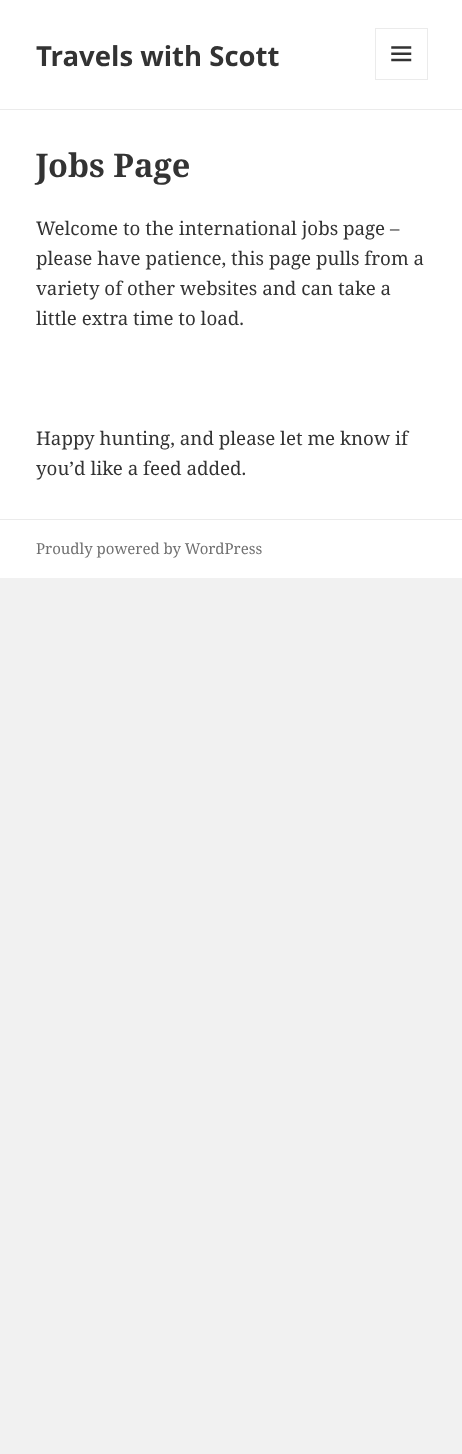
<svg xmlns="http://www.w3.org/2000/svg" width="462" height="1454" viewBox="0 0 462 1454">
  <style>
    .t1 { font: bold 27.5px Noto Sans; fill: #333; }
    .t2 { font: bold 32.5px Noto Serif; fill: #333; }
    .t3 { font: 18.75px Noto Serif; fill: #333; }
    .t4 { font: 15px Noto Serif; fill: #707070; }
  </style>
  <rect width="100%" height="100%" fill="#f1f1f1"/>
  <rect x="0" y="0" width="462" height="109" fill="#fff"/>
  <rect x="0" y="109" width="462" height="1" fill="#ebebeb"/>
  <text x="36" y="66" class="t1">Travels with Scott</text>
  <rect x="375.5" y="28.5" width="52" height="51" fill="none" stroke="#ebebeb"/>
  <image x="391" y="46" width="21" height="16" href="images/1.png"/>
  <rect x="0" y="110" width="462" height="409" fill="#fff"/>
  <text x="36" y="177" class="t2">Jobs Page</text>
  <text x="36" y="235" class="t3">Welcome to the international jobs page –</text>
  <text x="36" y="265" class="t3">please have patience, this page pulls from a</text>
  <text x="36" y="295" class="t3">variety of other websites and can take a</text>
  <text x="36" y="325" class="t3">little extra time to load.</text>
  <text x="36" y="445" class="t3">Happy hunting, and please let me know if</text>
  <text x="36" y="475" class="t3">you’d like a feed added.</text>
  <rect x="0" y="520" width="462" height="58" fill="#fff"/>
  <rect x="0" y="519" width="462" height="1" fill="#ebebeb"/>
  <text x="36" y="554" class="t4">Proudly powered by WordPress</text>
</svg>
